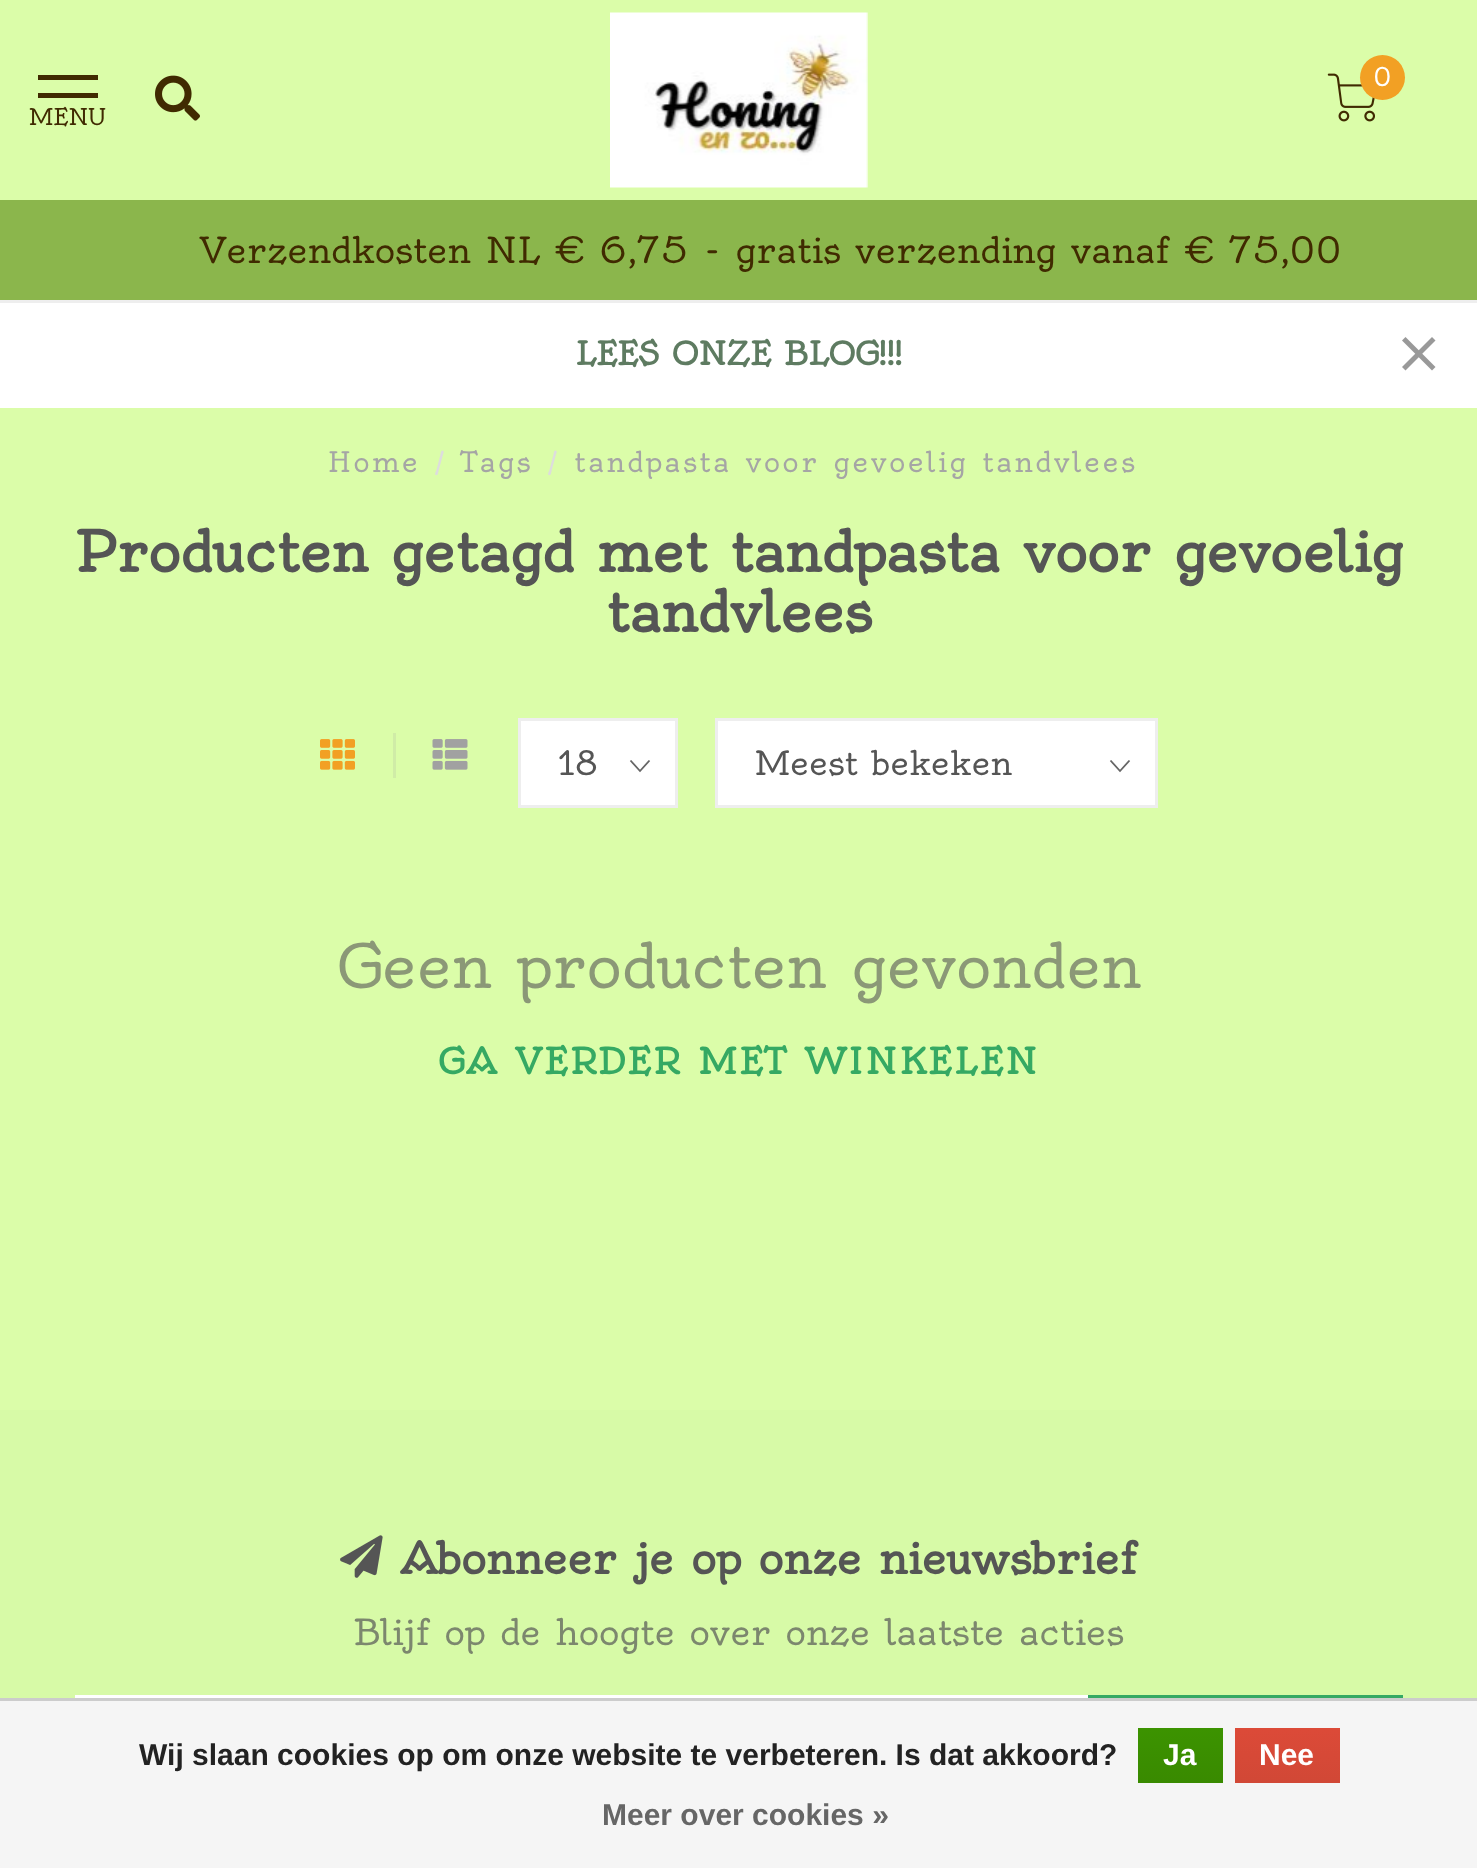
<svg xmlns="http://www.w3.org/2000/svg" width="1477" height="1868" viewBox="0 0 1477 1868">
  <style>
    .t1 { font: 25px Oldenburg; fill: #fff; }
    .t2 { font: 22.5px Oldenburg; fill: #402a01; }
    .t3 { font: 35px Oldenburg; fill: #402a01; }
    .t4 { font: bold 31.5px Oldenburg; fill: #5e7b61; }
    .t5 { font: 27.5px Oldenburg; letter-spacing: 2.5px; fill: #a5a5a5; }
    .t6 { font: 27.5px Oldenburg; letter-spacing: 2.5px; fill: #ddd; }
    .t7 { font: bold 55px Oldenburg; fill: #555; }
    .t8 { font: 32.5px Oldenburg; fill: #555; }
    .t9 { font: 60px Oldenburg; fill: #8b9877; }
    .t10 { font: bold 35px Oldenburg; letter-spacing: 2.5px; fill: #35a963; }
    .t11 { font: bold 42.5px Oldenburg; fill: #555; }
    .t12 { font: 35px Oldenburg; fill: #7c876e; }
    .t13 { font: bold 30px Liberation Sans; fill: #222; }
    .t14 { font: bold 30px Liberation Sans; fill: #fff; }
    .t15 { font: bold 30px Liberation Sans; fill: #666; }
  </style>
  <defs>
    <linearGradient id="g1" gradientUnits="userSpaceOnUse" x1="1180" y1="1728" x2="1180" y2="1783"><stop offset="0" stop-color="#3c9300"/><stop offset="1" stop-color="#398a00"/></linearGradient>
    <linearGradient id="g2" gradientUnits="userSpaceOnUse" x1="1288" y1="1728" x2="1288" y2="1783"><stop offset="0" stop-color="#dc4a38"/><stop offset="1" stop-color="#d14836"/></linearGradient>
  </defs>
  <rect width="100%" height="100%" fill="#dbfda9"/>
  <image x="610" y="12" width="258" height="176" href="images/1.png"/>
  <image x="1327" y="73" width="48" height="49" href="images/2.png"/>
  <circle cx="1382.5" cy="77.5" r="22.5" fill="#f2a024"/>
  <text x="1373" y="86" class="t1">0</text>
  <rect x="38" y="75" width="60" height="5" fill="#402a01"/>
  <rect x="38" y="93" width="60" height="5" fill="#402a01"/>
  <text x="29" y="125" class="t2">MENU</text>
  <image x="155" y="75" width="45" height="46" href="images/3.png"/>
  <rect x="0" y="200" width="1477" height="100" fill="#8bb64c"/>
  <rect x="0" y="300" width="1477" height="3" fill="#eee"/>
  <text x="200" y="263" class="t3">Verzendkosten NL € 6,75 - gratis verzending vanaf € 75,00</text>
  <rect x="0" y="303" width="1477" height="105" fill="#fff"/>
  <text x="575" y="365" class="t4">LEES ONZE BLOG!!!</text>
  <path d="M1405.5 337L1435.5 367L1432 370.5L1402 340.5Z" fill="#999"/>
  <path d="M1402 367L1432 337L1435.5 340.5L1405.5 370.5Z" fill="#999"/>
  <text x="328" y="472" class="t5">Home</text>
  <text x="432" y="472" class="t6">/</text>
  <text x="461" y="472" class="t5">Tags</text>
  <text x="545" y="472" class="t6">/</text>
  <text x="574" y="472" class="t5">tandpasta voor gevoelig tandvlees</text>
  <text x="75" y="572" class="t7">Producten getagd met tandpasta voor gevoelig</text>
  <text x="606" y="632" class="t7">tandvlees</text>
  <rect x="393" y="733" width="3" height="45" fill="#d0eca7"/>
  <image x="320" y="739" width="35" height="31" href="images/4.png"/>
  <image x="432" y="739" width="36" height="31" href="images/5.png"/>
  <rect x="521" y="721" width="154" height="84" fill="#fff"/>
  <path d="M649.5 760.5L640 771L630.5 760.5" fill="none" stroke="#666" stroke-width="1.8"/>
  <rect x="519.5" y="719.5" width="157" height="87" fill="none" stroke="#eee" stroke-width="3"/>
  <text x="558" y="775" class="t8">18</text>
  <rect x="718" y="721" width="437" height="84" fill="#fff"/>
  <path d="M1129.5 760.5L1120 771L1110.5 760.5" fill="none" stroke="#666" stroke-width="1.8"/>
  <rect x="716.5" y="719.5" width="440" height="87" fill="none" stroke="#eee" stroke-width="3"/>
  <text x="755" y="775" class="t8">Meest bekeken</text>
  <text x="337" y="988" class="t9">Geen producten gevonden</text>
  <text x="438" y="1074" class="t10">GA VERDER MET WINKELEN</text>
  <rect x="0" y="1410" width="1477" height="288" fill="#d7faa7"/>
  <image x="340" y="1535" width="43" height="43" href="images/6.png"/>
  <text x="401" y="1574" class="t11">Abonneer je op onze nieuwsbrief</text>
  <text x="354" y="1645" class="t12">Blijf op de hoogte over onze laatste acties</text>
  <rect x="75" y="1695" width="1013" height="3" fill="#fff"/>
  <rect x="1088" y="1695" width="315" height="3" fill="#35a963"/>
  <rect x="0" y="1701" width="1477" height="167" fill="#f5f5f5"/>
  <rect x="0" y="1698" width="1477" height="3" fill="#ccc"/>
  <text x="139" y="1765" class="t13">Wij slaan cookies op om onze website te verbeteren. Is dat akkoord?</text>
  <rect x="1138" y="1728" width="85" height="55" fill="url(#g1)"/>
  <text x="1163" y="1765" class="t14">Ja</text>
  <rect x="1235" y="1728" width="105" height="55" fill="url(#g2)"/>
  <text x="1259" y="1765" class="t14">Nee</text>
  <text x="602" y="1825" class="t15">Meer over cookies »</text>
</svg>
